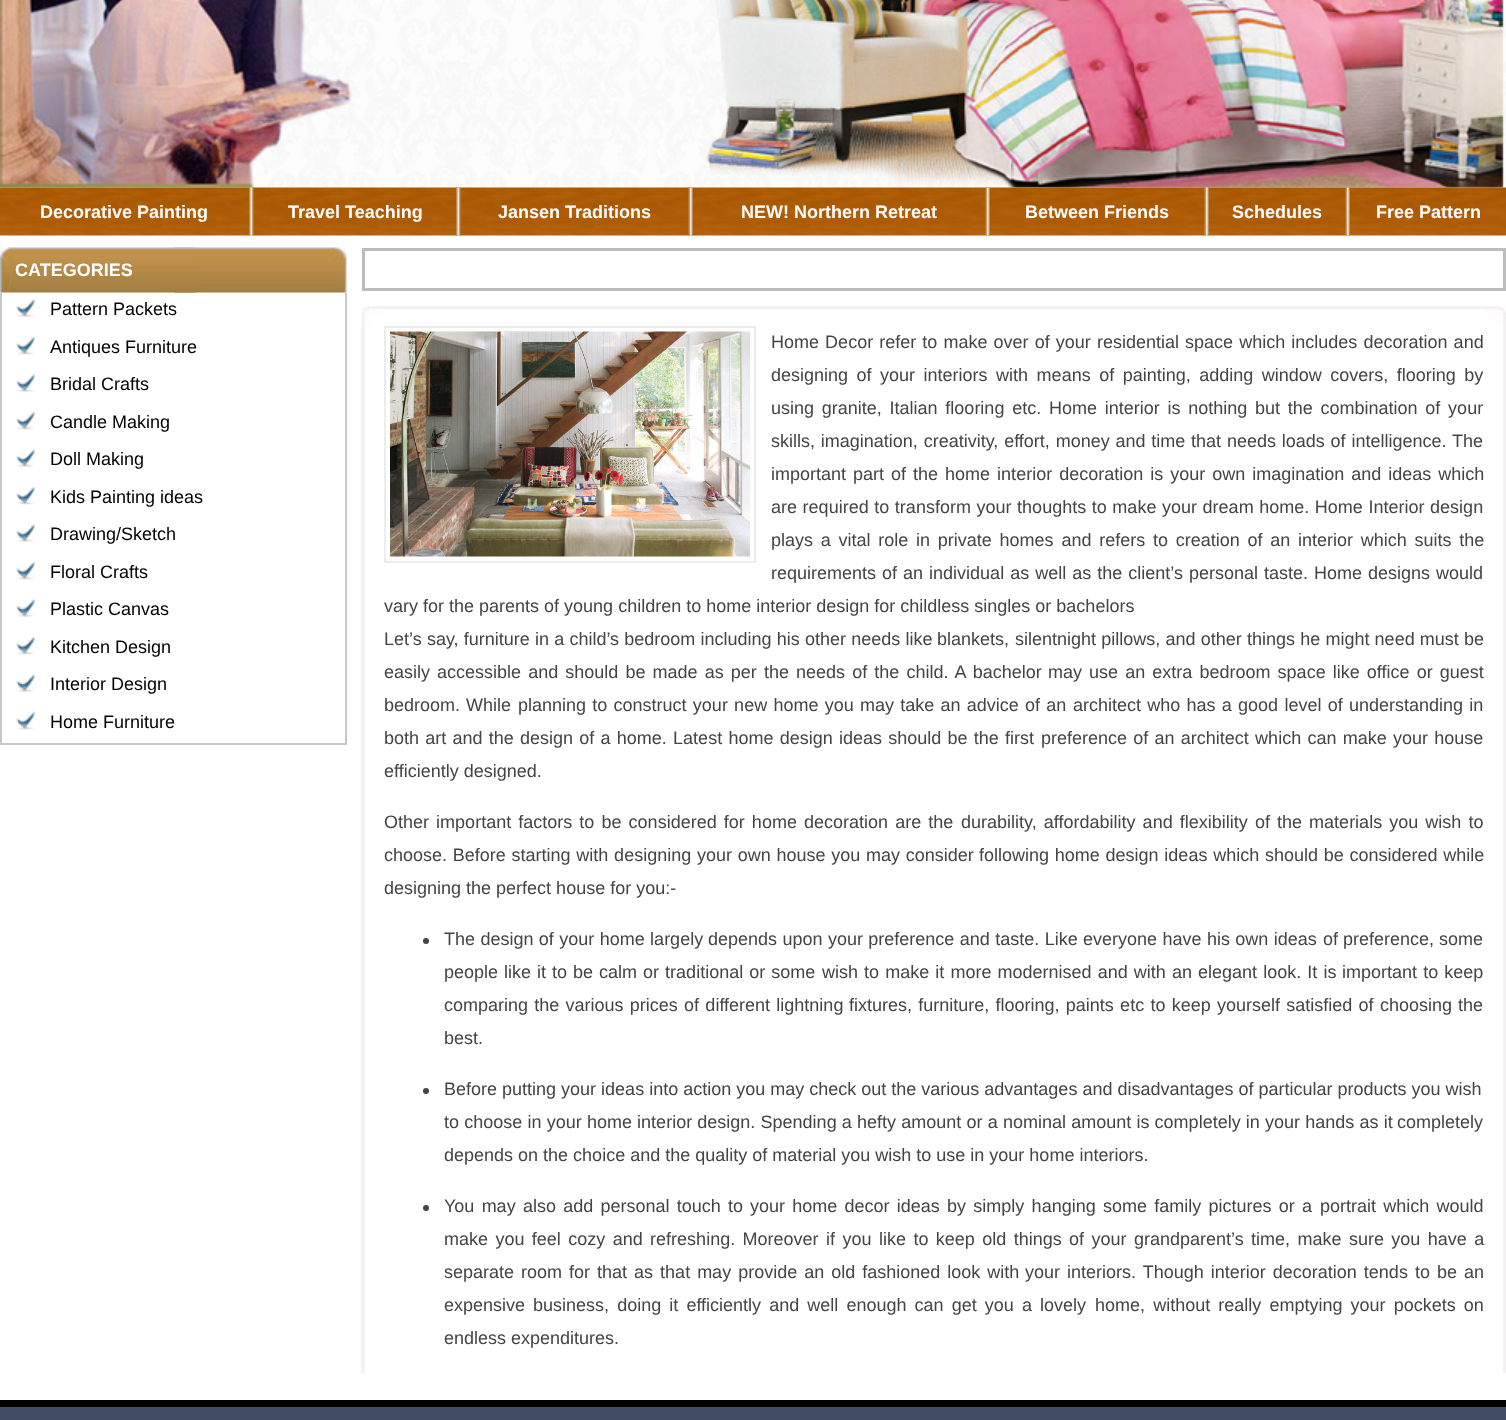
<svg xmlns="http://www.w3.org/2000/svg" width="1506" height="1420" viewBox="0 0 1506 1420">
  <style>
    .t1 { font: bold 18px Liberation Sans; fill: #fff; }
    .t2 { font: 18px Liberation Sans; fill: #000; }
    .t3 { font: 18px Liberation Sans; fill: #444; }
  </style>
  <rect width="100%" height="100%" fill="#fff"/>
  <image x="0" y="0" width="1506" height="188" href="images/1.png"/>
  <image x="0" y="187" width="1506" height="49" href="images/2.png"/>
  <text x="40" y="218" class="t1">Decorative Painting</text>
  <image x="249" y="187" width="5" height="49" href="images/3.png"/>
  <text x="288" y="218" class="t1">Travel Teaching</text>
  <image x="456" y="187" width="5" height="49" href="images/4.png"/>
  <text x="498" y="218" class="t1">Jansen Traditions</text>
  <image x="688" y="187" width="5" height="49" href="images/5.png"/>
  <text x="741" y="218" class="t1">NEW! Northern Retreat</text>
  <image x="985" y="187" width="5" height="49" href="images/6.png"/>
  <text x="1025" y="218" class="t1">Between Friends</text>
  <image x="1204" y="187" width="5" height="49" href="images/7.png"/>
  <text x="1232" y="218" class="t1">Schedules</text>
  <image x="1345" y="187" width="5" height="49" href="images/8.png"/>
  <text x="1376" y="218" class="t1">Free Pattern</text>
  <image x="174" y="247" width="173" height="46" href="images/9.png"/>
  <image x="0" y="247" width="195" height="46" href="images/10.png"/>
  <text x="15" y="276" class="t1">CATEGORIES</text>
  <rect x="345" y="293" width="2" height="451" fill="#c8c6c6"/>
  <rect x="0" y="743" width="347" height="2" fill="#c8c6c6"/>
  <rect x="0" y="293" width="2" height="451" fill="#c8c6c6"/>
  <image x="16" y="298" width="19" height="19" href="images/11.png"/>
  <text x="50" y="315" class="t2">Pattern Packets</text>
  <image x="16" y="336" width="19" height="19" href="images/12.png"/>
  <text x="50" y="353" class="t2">Antiques Furniture</text>
  <image x="16" y="373" width="19" height="19" href="images/11.png"/>
  <text x="50" y="390" class="t2">Bridal Crafts</text>
  <image x="16" y="411" width="19" height="19" href="images/12.png"/>
  <text x="50" y="428" class="t2">Candle Making</text>
  <image x="16" y="448" width="19" height="19" href="images/11.png"/>
  <text x="50" y="465" class="t2">Doll Making</text>
  <image x="16" y="486" width="19" height="19" href="images/12.png"/>
  <text x="50" y="503" class="t2">Kids Painting ideas</text>
  <image x="16" y="523" width="19" height="19" href="images/11.png"/>
  <text x="50" y="540" class="t2">Drawing/Sketch</text>
  <image x="16" y="561" width="19" height="19" href="images/12.png"/>
  <text x="50" y="578" class="t2">Floral Crafts</text>
  <image x="16" y="598" width="19" height="19" href="images/11.png"/>
  <text x="50" y="615" class="t2">Plastic Canvas</text>
  <image x="16" y="636" width="19" height="19" href="images/12.png"/>
  <text x="50" y="653" class="t2">Kitchen Design</text>
  <image x="16" y="673" width="19" height="19" href="images/11.png"/>
  <text x="50" y="690" class="t2">Interior Design</text>
  <image x="16" y="711" width="19" height="19" href="images/12.png"/>
  <text x="50" y="728" class="t2">Home Furniture</text>
  <rect x="363.5" y="249.5" width="1141" height="40" fill="none" stroke="#bcbcbc" stroke-width="3"/>
  <image x="361" y="306" width="23" height="19" href="images/13.png"/>
  <rect x="384" y="306" width="1100" height="3" fill="#f5f1f2"/>
  <image x="1484" y="306" width="22" height="19" href="images/14.png"/>
  <rect x="361" y="325" width="4" height="1048" fill="#f5f1f2"/>
  <rect x="385" y="327" width="370" height="235" fill="none" stroke="#ececec" stroke-width="2"/>
  <image x="390" y="331" width="360" height="226" href="images/15.png"/>
  <text x="771" y="348" word-spacing="1.1" class="t3">Home Decor refer to make over of your residential space which includes decoration and</text>
  <text x="771" y="381" word-spacing="3.5" class="t3">designing of your interiors with means of painting, adding window covers, flooring by</text>
  <text x="771" y="414" word-spacing="2.75" class="t3">using granite, Italian flooring etc. Home interior is nothing but the combination of your</text>
  <text x="771" y="447" word-spacing="0.8" class="t3">skills, imagination, creativity, effort, money and time that needs loads of intelligence. The</text>
  <text x="771" y="480" word-spacing="2" class="t3">important part of the home interior decoration is your own imagination and ideas which</text>
  <text x="771" y="513" word-spacing="0.6" class="t3">are required to transform your thoughts to make your dream home. Home Interior design</text>
  <text x="771" y="546" word-spacing="2.75" class="t3">plays a vital role in private homes and refers to creation of an interior which suits the</text>
  <text x="771" y="579" word-spacing="1" class="t3">requirements of an individual as well as the client’s personal taste. Home designs would</text>
  <text x="384" y="612" class="t3">vary for the parents of young children to home interior design for childless singles or bachelors</text>
  <text x="384" y="645" word-spacing="0.2" class="t3">Let’s say, furniture in a child’s bedroom including his other needs like</text>
  <text x="937" y="645" class="t3">blankets,</text>
  <text x="1015" y="645" word-spacing="0.2" class="t3">silentnight pillows, and other things he might need must be</text>
  <text x="384" y="678" class="t3">easily</text>
  <text x="437" y="678" word-spacing="2.1" class="t3">accessible and should be made as per the needs of the child. A bachelor</text>
  <text x="1048" y="678" word-spacing="2.1" class="t3">may use an extra bedroom space like office or guest</text>
  <text x="384" y="711" word-spacing="1" class="t3">bedroom. While</text>
  <text x="518" y="711" word-spacing="1.25" class="t3">planning to construct your new home you may take an advice of an</text>
  <text x="1073" y="711" word-spacing="1.25" class="t3">architect who has a good level of understanding in</text>
  <text x="384" y="744" word-spacing="1.25" class="t3">both art and the</text>
  <text x="520" y="744" word-spacing="1.25" class="t3">design of a home. Latest home design ideas should be the first</text>
  <text x="1041" y="744" word-spacing="1.25" class="t3">preference of an architect which can make your house</text>
  <text x="384" y="777" class="t3">efficiently designed.</text>
  <text x="384" y="828" word-spacing="2.1" class="t3">Other important factors to be considered for home decoration are the</text>
  <text x="961" y="828" word-spacing="2.1" class="t3">durability, affordability and flexibility of the materials you wish to</text>
  <text x="384" y="861" word-spacing="0.75" class="t3">choose. Before starting with designing your own house you may consider</text>
  <text x="979" y="861" word-spacing="0.75" class="t3">following home design ideas which should be considered while</text>
  <text x="384" y="894" class="t3">designing the perfect house for you:-</text>
  <circle cx="426" cy="941" r="3" fill="#444"/>
  <text x="444" y="945" word-spacing="0.4" class="t3">The design of your home largely</text>
  <text x="708" y="945" word-spacing="0.4" class="t3">depends upon your preference and taste. Like everyone have his own ideas</text>
  <text x="1323" y="945" class="t3">of preference, some</text>
  <text x="444" y="978" word-spacing="1" class="t3">people like it to be calm or traditional or some</text>
  <text x="822" y="978" word-spacing="1.1" class="t3">wish to make it more modernised and with an elegant look. It is</text>
  <text x="1342" y="978" word-spacing="1.1" class="t3">important to keep</text>
  <text x="444" y="1011" word-spacing="1.25" class="t3">comparing the various prices of different lightning</text>
  <text x="849" y="1011" word-spacing="1.25" class="t3">fixtures, furniture, flooring, paints etc to keep yourself satisfied of</text>
  <text x="1380" y="1011" word-spacing="1" class="t3">choosing the</text>
  <text x="444" y="1044" class="t3">best.</text>
  <circle cx="426" cy="1091" r="3" fill="#444"/>
  <text x="444" y="1095" class="t3">Before putting your ideas into action you may check out the various advantages and disadvantages of particular products you wish</text>
  <text x="444" y="1128" word-spacing="0.2" class="t3">to choose in your home interior design. Spending a hefty amount or a nominal amount is completely in your hands as it</text>
  <text x="1397" y="1128" class="t3">completely</text>
  <text x="444" y="1161" class="t3">depends on the choice and the quality of material you wish to use in your home interiors.</text>
  <circle cx="426" cy="1208" r="3" fill="#444"/>
  <text x="444" y="1212" word-spacing="2.25" class="t3">You may also add personal touch to</text>
  <text x="750" y="1212" word-spacing="2.25" class="t3">your home decor ideas by simply hanging some family pictures or a</text>
  <text x="1320" y="1212" word-spacing="2.25" class="t3">portrait which would</text>
  <text x="444" y="1245" word-spacing="2.4" class="t3">make you feel cozy and refreshing. Moreover if you</text>
  <text x="879" y="1245" word-spacing="2.4" class="t3">like to keep old things of your grandparent’s time, make sure you have a</text>
  <text x="444" y="1278" word-spacing="2" class="t3">separate room for that as that may provide an old fashioned look with</text>
  <text x="1025" y="1278" word-spacing="2" class="t3">your interiors. Though interior decoration tends to be an</text>
  <text x="444" y="1311" class="t3">expensive</text>
  <text x="533" y="1311" word-spacing="3.1" class="t3">business, doing it efficiently and well enough can get you a lovely</text>
  <text x="1095" y="1311" word-spacing="3.1" class="t3">home, without really emptying your pockets on</text>
  <text x="444" y="1344" class="t3">endless expenditures.</text>
  <rect x="1503" y="325" width="3" height="1048" fill="#f5f1f2"/>
  <rect x="0" y="1400" width="1506" height="7" fill="#000"/>
  <rect x="0" y="1407" width="1506" height="13" fill="#404d63"/>
</svg>
